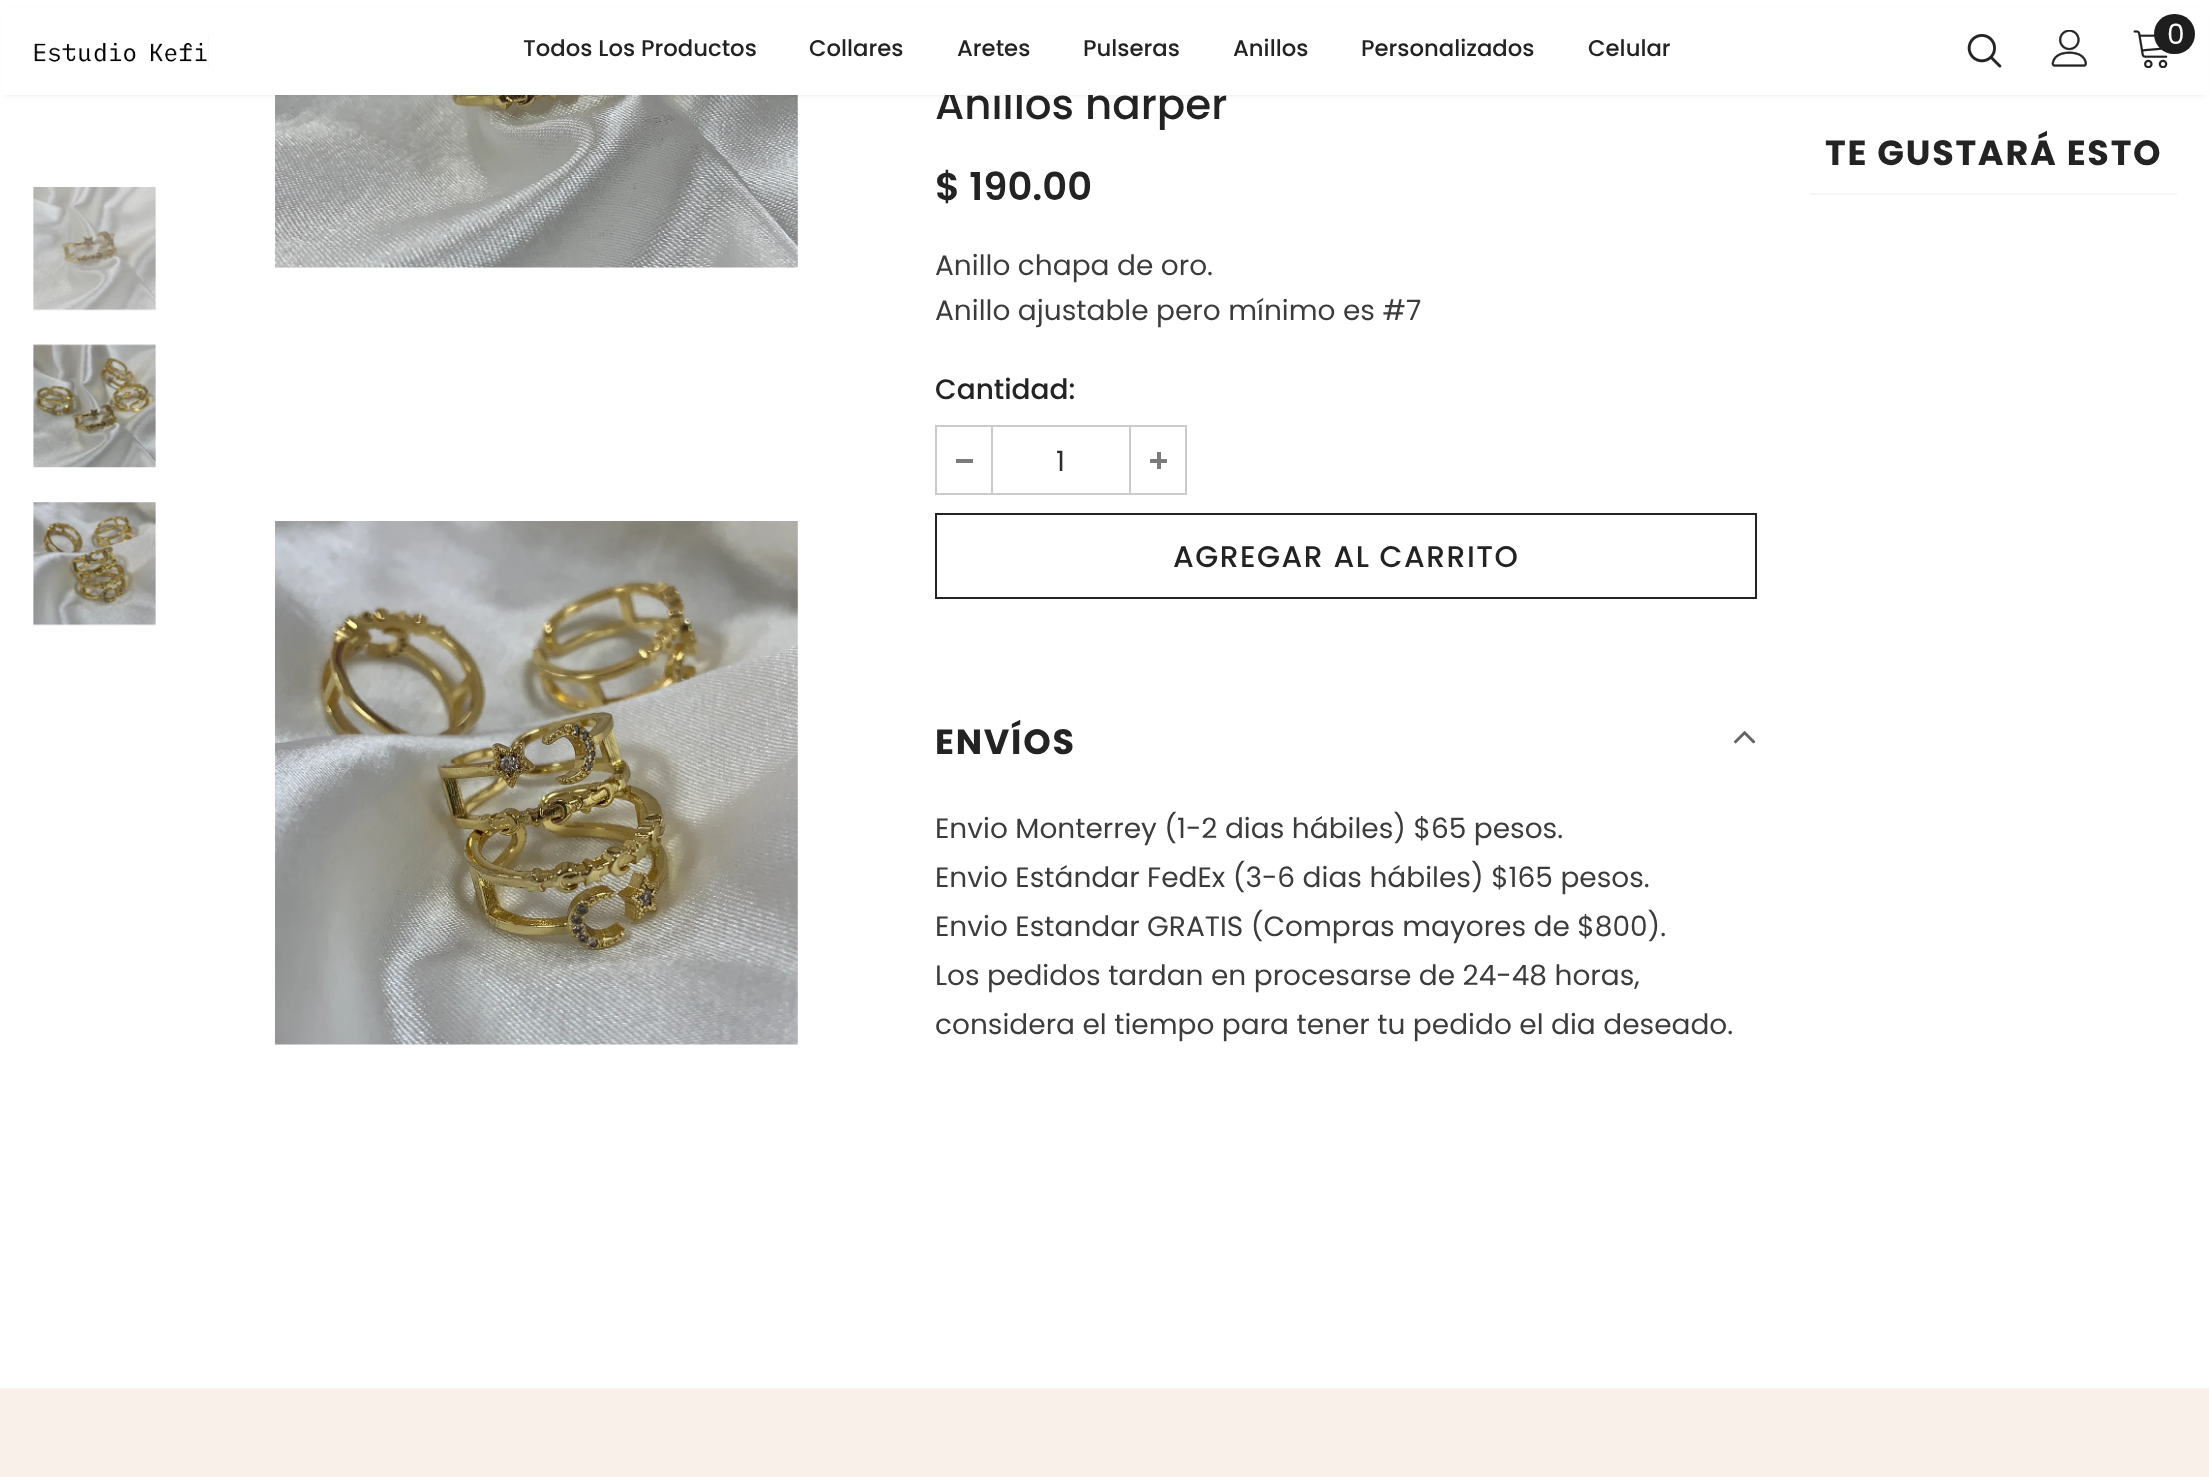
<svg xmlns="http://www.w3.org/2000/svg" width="2209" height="1477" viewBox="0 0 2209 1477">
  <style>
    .t1 { font: 500 42px 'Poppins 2'; fill: #232323; }
    .t2 { font: 500 22.75px Poppins; fill: #232323; }
    .t3 { font: 28px Poppins; fill: #fff; }
    .t4 { font: 600 38.5px Poppins; fill: #232323; }
    .t5 { font: 28px Poppins; fill: #3c3c3c; }
    .t6 { font: 500 28px Poppins; fill: #232323; }
    .t7 { font: 28px Poppins; fill: #2d2d2d; }
    .t8 { font: 500 29.75px 'Poppins 2'; letter-spacing: 1.5px; fill: #232323; }
    .t9 { font: bold 35px Poppins; letter-spacing: 1.75px; fill: #232323; }
  </style>
  <rect width="100%" height="100%" fill="#fff"/>
  <image x="275" y="95" width="523" height="173" href="images/8.png"/>
  <rect x="5" y="11" width="2200" height="84" fill="#0000001a" filter="blur(2.5px)"/>
  <text x="935" y="119" class="t1">Anillos harper</text>
  <rect x="2" y="8" width="2206" height="87" fill="#fff"/>
  <image x="34" y="35" width="175" height="33" href="images/1.png"/>
  <text x="523" y="56" class="t2">Todos Los Productos</text>
  <text x="809" y="56" class="t2">Collares</text>
  <text x="957" y="56" class="t2">Aretes</text>
  <text x="1083" y="56" class="t2">Pulseras</text>
  <text x="1233" y="56" class="t2">Anillos</text>
  <text x="1361" y="56" class="t2">Personalizados</text>
  <text x="1588" y="56" class="t2">Celular</text>
  <image x="1967" y="34" width="35" height="34" href="images/2.png"/>
  <image x="2051" y="30" width="36" height="37" href="images/3.png"/>
  <image x="2133" y="30" width="35" height="38" href="images/4.png"/>
  <rect x="2154" y="14" width="41" height="40" rx="20" fill="#1e1e1e"/>
  <text x="2167" y="44" class="t3">0</text>
  <image x="33" y="187" width="123" height="124" href="images/5.png"/>
  <image x="33" y="344" width="123" height="124" href="images/6.png"/>
  <image x="33" y="502" width="123" height="124" href="images/7.png"/>
  <image x="275" y="521" width="523" height="524" href="images/9.png"/>
  <text x="935" y="200" class="t4">$ 190.00</text>
  <text x="935" y="275" class="t5">Anillo chapa de oro.</text>
  <text x="935" y="320" class="t5">Anillo ajustable pero mínimo es #7</text>
  <text x="935" y="399" class="t6">Cantidad:</text>
  <rect x="936" y="426" width="250" height="68" fill="none" stroke="#cbcbcb" stroke-width="2"/>
  <rect x="991" y="427" width="2" height="67" fill="#cbcbcb"/>
  <rect x="956" y="459" width="17" height="4" fill="#7b7b7b"/>
  <text x="1056" y="471" class="t7">1</text>
  <rect x="1129" y="427" width="2" height="67" fill="#cbcbcb"/>
  <rect x="1150" y="459" width="17" height="4" fill="#7b7b7b"/>
  <rect x="1157" y="452" width="4" height="17" fill="#7b7b7b"/>
  <rect x="936" y="514" width="820" height="84" fill="none" stroke="#232323" stroke-width="2"/>
  <text x="1173" y="567" class="t8">AGREGAR AL CARRITO</text>
  <text x="935" y="754" class="t9">ENVÍOS</text>
  <image x="1733" y="731" width="23" height="13" href="images/10.png"/>
  <text x="935" y="838" class="t5">Envio Monterrey (1-2 dias hábiles) $65 pesos.</text>
  <text x="935" y="887" class="t5">Envio Estándar FedEx (3-6 dias hábiles) $165 pesos.</text>
  <text x="935" y="936" class="t5">Envio Estandar GRATIS (Compras mayores de $800).</text>
  <text x="935" y="985" class="t5">Los pedidos tardan en procesarse de 24-48 horas,</text>
  <text x="935" y="1034" class="t5">considera el tiempo para tener tu pedido el dia deseado.</text>
  <rect x="1810" y="193" width="367" height="2" fill="#f6f6f6"/>
  <text x="1825" y="165" class="t9">TE GUSTARÁ ESTO</text>
  <rect x="0" y="1388" width="2209" height="89" fill="#f9f1e9"/>
</svg>
